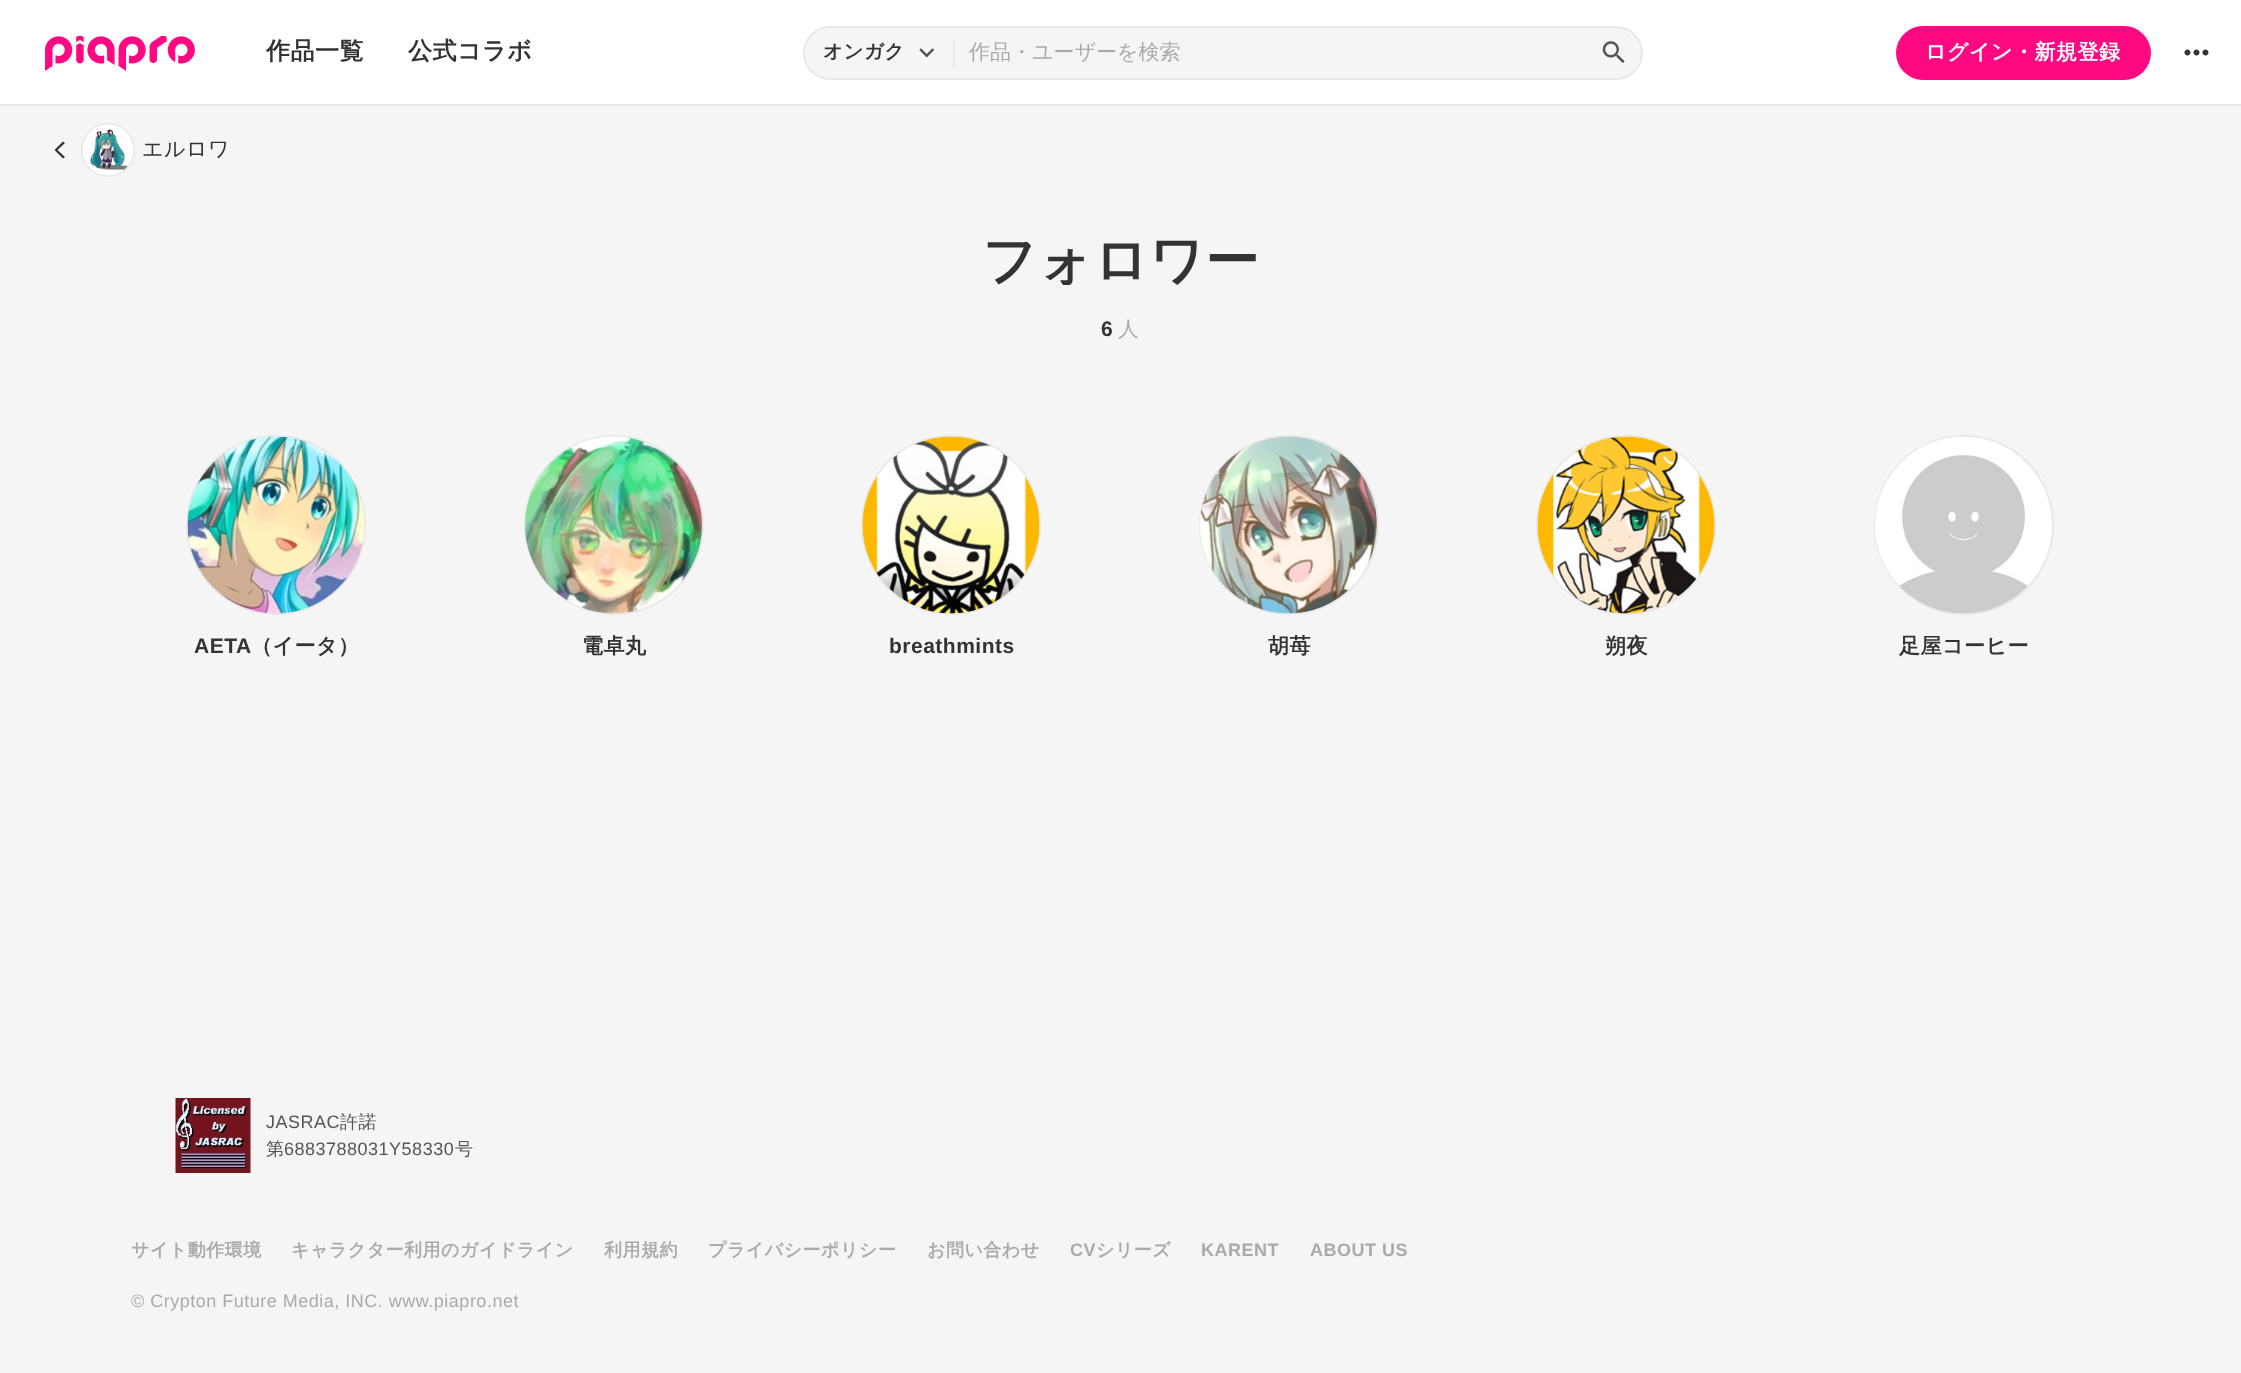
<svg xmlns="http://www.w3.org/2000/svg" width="2241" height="1373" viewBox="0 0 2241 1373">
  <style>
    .t1 { font: bold 24px WenQuanYi Zen Hei; letter-spacing: 0.5px; fill: #333; }
    .t2 { font: bold 19.5px WenQuanYi Zen Hei; letter-spacing: 0.5px; fill: #333; }
    .t3 { font: 500 21px WenQuanYi Zen Hei; fill: #aaa; }
    .t4 { font: bold 21px WenQuanYi Zen Hei; letter-spacing: 0.5px; fill: #fff; }
    .t5 { font: 500 21px WenQuanYi Zen Hei; letter-spacing: 0.5px; fill: #333; }
    .t6 { font: bold 54px WenQuanYi Zen Hei; letter-spacing: 0.5px; fill: #333; }
    .t7 { font: bold 21px Liberation Sans; letter-spacing: 0.5px; fill: #333; }
    .t8 { font: 500 21px WenQuanYi Zen Hei; letter-spacing: 0.5px; fill: #aaa; }
    .t9 { font: bold 21px WenQuanYi Zen Hei; letter-spacing: 0.5px; fill: #333; }
    .t10 { font: 18px Liberation Sans; letter-spacing: 0.5px; fill: #555; }
    .t11 { font: 500 18px WenQuanYi Zen Hei; letter-spacing: 0.5px; fill: #555; }
    .t12 { font: bold 18px WenQuanYi Zen Hei; letter-spacing: 0.5px; fill: #aaa; }
    .t13 { font: bold 18px Liberation Sans; letter-spacing: 0.5px; fill: #aaa; }
    .t14 { font: 18px Liberation Sans; letter-spacing: 0.5px; fill: #aaa; }
  </style>
  <rect width="100%" height="100%" fill="#f5f5f5"/>
  <rect x="0" y="0" width="2241" height="104" fill="#fff"/>
  <rect x="0" y="104" width="2241" height="2" fill="#e8e8e8"/>
  <image x="45" y="36" width="150" height="35" href="images/1.png"/>
  <text x="266" y="59" class="t1">作品一覧</text>
  <text x="408" y="59" class="t1">公式コラボ</text>
  <rect x="804" y="27" width="838" height="52" rx="26" fill="#f5f5f5" stroke="#e8e8e8" stroke-width="2"/>
  <text x="823" y="58" class="t2">オンガク</text>
  <image x="919" y="48" width="16" height="10" href="images/2.png"/>
  <rect x="953" y="38" width="2" height="30" fill="#e8e8e8"/>
  <text x="969" y="59" class="t3">作品・ユーザーを検索</text>
  <image x="1602" y="41" width="23" height="22" href="images/3.png"/>
  <rect x="1896" y="26" width="255" height="54" rx="27" fill="#ff0982"/>
  <text x="1925" y="59" class="t4">ログイン・新規登録</text>
  <image x="2184" y="49" width="25" height="7" href="images/4.png"/>
  <path d="M65 143L63 141.5L54.5 150L63 158.5L65 157L57.5 150Z" fill="#333"/>
  <circle cx="108" cy="150" r="26" fill="none" stroke="#e8e8e8" stroke-width="2"/>
  <image x="82" y="124" width="52" height="52" href="images/5.png"/>
  <text x="142" y="156" class="t5">エルロワ</text>
  <text x="982" y="279" class="t6">フォロワー</text>
  <text x="1101" y="336" class="t7">6</text>
  <text x="1118" y="336" class="t8">人</text>
  <circle cx="276" cy="525" r="89" fill="none" stroke="#e8e8e8" stroke-width="2"/>
  <image x="187" y="436" width="178" height="178" href="images/6.png"/>
  <text x="194" y="653" class="t7">AETA</text>
  <text x="251" y="653" class="t9">（イータ）</text>
  <circle cx="614" cy="525" r="89" fill="none" stroke="#e8e8e8" stroke-width="2"/>
  <image x="525" y="436" width="177" height="178" href="images/7.png"/>
  <text x="582" y="653" class="t9">電卓丸</text>
  <circle cx="951" cy="525" r="89" fill="none" stroke="#e8e8e8" stroke-width="2"/>
  <image x="862" y="436" width="178" height="178" href="images/8.png"/>
  <text x="889" y="653" class="t7">breathmints</text>
  <circle cx="1289" cy="525" r="89" fill="none" stroke="#e8e8e8" stroke-width="2"/>
  <image x="1200" y="436" width="177" height="178" href="images/9.png"/>
  <text x="1268" y="653" class="t9">胡苺</text>
  <circle cx="1626" cy="525" r="89" fill="none" stroke="#e8e8e8" stroke-width="2"/>
  <image x="1537" y="436" width="178" height="178" href="images/10.png"/>
  <text x="1605" y="653" class="t9">朔夜</text>
  <circle cx="1964" cy="525" r="89" fill="none" stroke="#e8e8e8" stroke-width="2"/>
  <image x="1875" y="436" width="177" height="178" href="images/11.png"/>
  <text x="1899" y="653" class="t9">足屋コーヒー</text>
  <image x="175" y="1098" width="76" height="75" href="images/12.png"/>
  <text x="266" y="1128" class="t10">JASRAC</text>
  <text x="340" y="1128" class="t11">許諾</text>
  <text x="266" y="1155" class="t11">第</text>
  <text x="284" y="1155" class="t10">6883788031Y58330</text>
  <text x="455" y="1155" class="t11">号</text>
  <text x="131" y="1256" class="t12">サイト動作環境</text>
  <text x="291" y="1256" class="t12">キャラクター利用のガイドライン</text>
  <text x="604" y="1256" class="t12">利用規約</text>
  <text x="708" y="1256" class="t12">プライバシーポリシー</text>
  <text x="927" y="1256" class="t12">お問い合わせ</text>
  <text x="1070" y="1256" class="t13">CV</text>
  <text x="1096" y="1256" class="t12">シリーズ</text>
  <text x="1201" y="1256" class="t13">KARENT</text>
  <text x="1310" y="1256" class="t13">ABOUT US</text>
  <text x="131" y="1307" class="t14">© Crypton Future Media, INC. www.piapro.net</text>
</svg>
